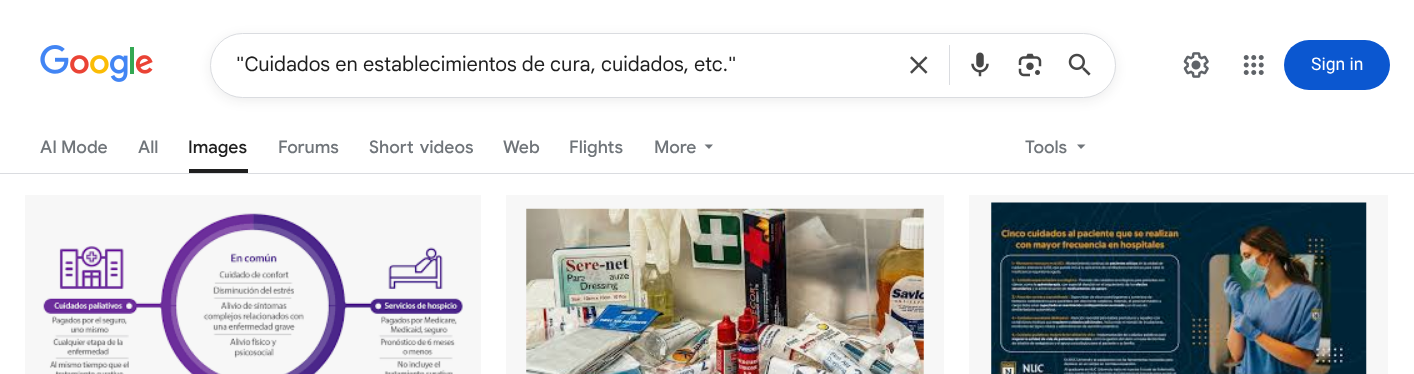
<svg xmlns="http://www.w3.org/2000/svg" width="1414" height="374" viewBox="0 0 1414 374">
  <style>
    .t1 { font: 20px Google Sans; fill: #1f1f1f; }
    .t2 { font: 17.5px Roboto; fill: #fff; }
    .t3 { font: 500 17.5px Google Sans; fill: #70757a; }
    .t4 { font: 500 17.5px Google Sans; fill: #1f1f1f; }
  </style>
  <rect width="100%" height="100%" fill="#fff"/>
  <image x="40" y="45" width="113" height="37" href="images/1.png"/>
  <rect x="210" y="36" width="906" height="65" rx="32.5" fill="#1f1f1f14" filter="blur(6px)"/>
  <rect x="210.5" y="33.5" width="905" height="64" rx="32" fill="#fff" stroke="#dadce0"/>
  <text x="236" y="71" class="t1">"Cuidados en establecimientos de cura, cuidados, etc."</text>
  <image x="910" y="56" width="18" height="18" href="images/2.png"/>
  <rect x="949" y="45" width="1" height="40" fill="#dadce0"/>
  <image x="971" y="52" width="18" height="25" href="images/3.png"/>
  <image x="1018" y="53" width="24" height="24" href="images/4.png"/>
  <image x="1068" y="53" width="23" height="23" href="images/5.png"/>
  <image x="1183" y="52" width="26" height="26" href="images/6.png"/>
  <image x="1243" y="55" width="21" height="20" href="images/7.png"/>
  <rect x="1284" y="40" width="106" height="50" rx="25" fill="#0b57d0"/>
  <text x="1311" y="70" class="t2">Sign in</text>
  <text x="40" y="153" class="t3">AI Mode</text>
  <text x="138" y="153" class="t3">All</text>
  <rect x="189" y="169" width="59" height="4" fill="#1f1f1f"/>
  <text x="188" y="153" class="t4">Images</text>
  <text x="278" y="153" class="t3">Forums</text>
  <text x="369" y="153" word-spacing="2" class="t3">Short videos</text>
  <text x="503" y="153" class="t3">Web</text>
  <text x="569" y="153" class="t3">Flights</text>
  <text x="654" y="153" class="t3">More</text>
  <path d="M704.5 144.5L709 149L713 144.5Z" fill="#70757a"/>
  <text x="1025" y="153" class="t3">Tools</text>
  <path d="M1077 144.5L1081 149L1085.5 144.5Z" fill="#70757a"/>
  <rect x="0" y="173" width="1414" height="1" fill="#dadce0"/>
  <image x="43" y="213" width="420" height="161" href="images/8.png"/>
  <rect x="25" y="195" width="456" height="179" fill="#00000008"/>
  <image x="526" y="208" width="398" height="166" href="images/9.png"/>
  <rect x="506" y="195" width="438" height="179" fill="#00000008"/>
  <image x="991" y="202" width="376" height="172" href="images/10.png"/>
  <rect x="969" y="195" width="419" height="179" fill="#00000008"/>
</svg>
